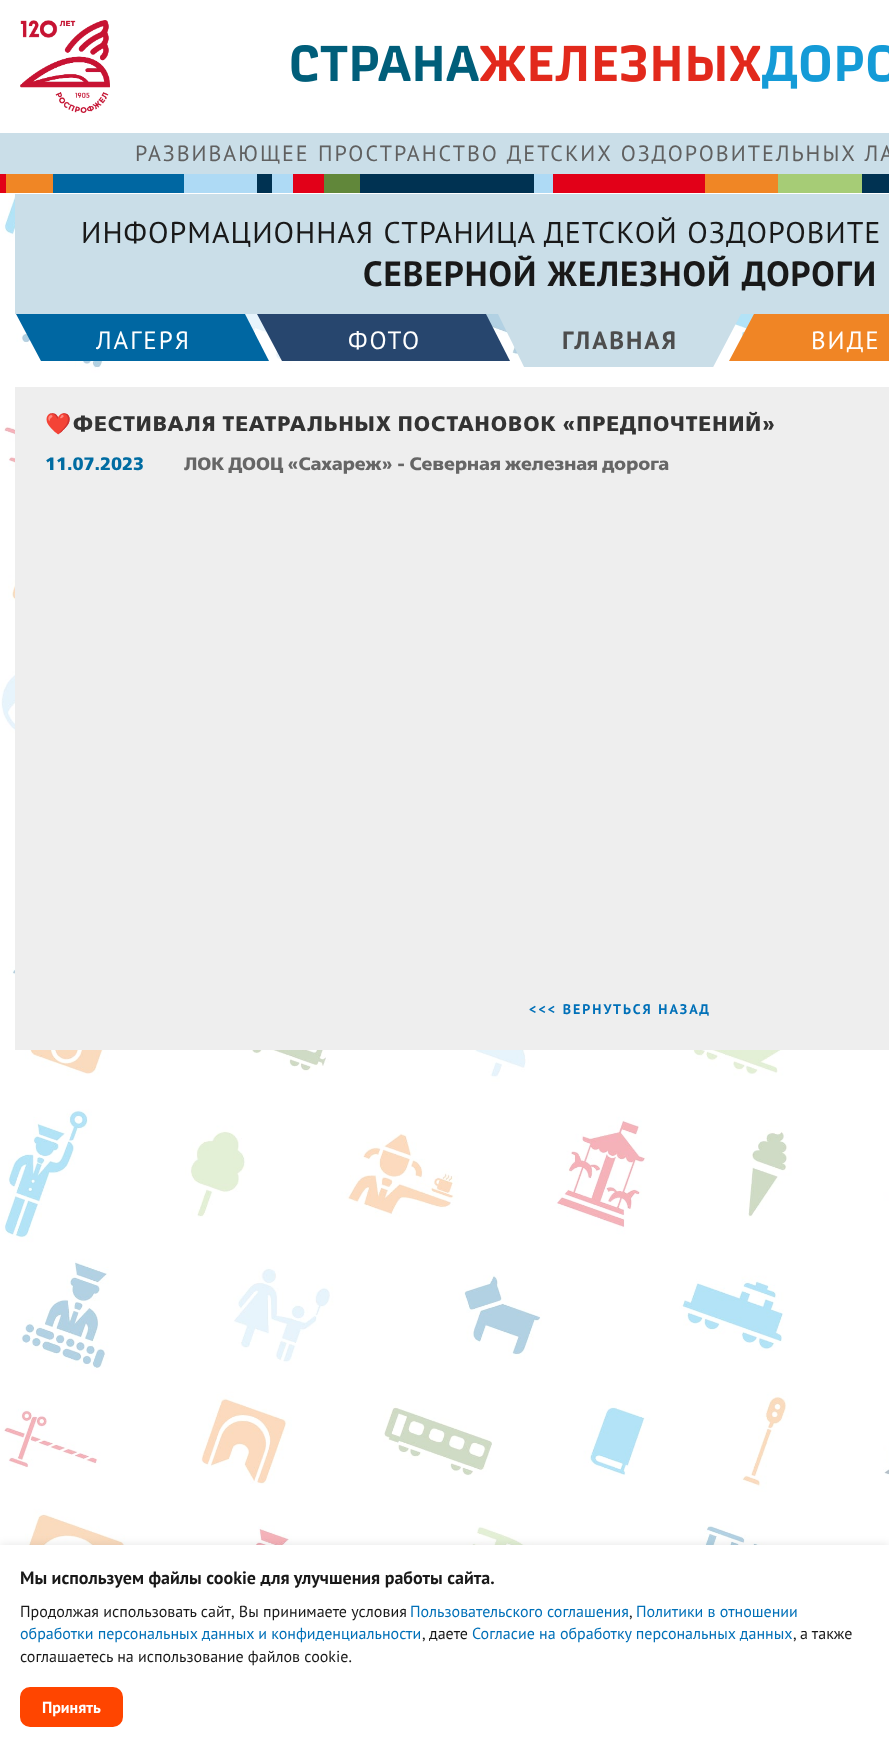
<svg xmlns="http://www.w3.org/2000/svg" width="889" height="1747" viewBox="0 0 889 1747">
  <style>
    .t1 { font: 22px PT Sans; letter-spacing: 2px; fill: #606060; }
    .t2 { font: 30px PT Sans; letter-spacing: 1px; fill: #191919; }
    .t3 { font: bold 35px PT Sans; letter-spacing: 1px; fill: #191919; }
    .t4 { font: 25px PT Sans; letter-spacing: 2px; fill: #fff; }
    .t5 { font: bold 25px PT Sans; letter-spacing: 2px; fill: #4d4d4d; }
    .t6 { font: 21px Noto Color Emoji; letter-spacing: 1px; fill: #333; }
    .t7 { font: bold 21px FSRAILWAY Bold; letter-spacing: 1px; fill: #333; }
    .t8 { font: bold 18px FSRAILWAY Bold; fill: #006ca2; }
    .t9 { font: bold 18px FSRAILWAY Bold; fill: #666; }
    .t10 { font: bold 14px PT Sans; letter-spacing: 2px; fill: #0070b8; }
    .t11 { font: bold 18px PT Sans; fill: #191919; }
    .t12 { font: 16px PT Sans; fill: #191919; }
    .t13 { font: 16px PT Sans; fill: #0070b8; }
    .t14 { font: bold 16px PT Sans; fill: #fff; }
  </style>
  <defs>
    <clipPath id="clip1"><rect x="498" y="314" width="244" height="53"/></clipPath>
  </defs>
  <rect width="100%" height="100%" fill="#fff"/>
  <image x="1" y="194" width="888" height="1351" href="images/1.png"/>
  <image x="20" y="20" width="90" height="93" href="images/2.png"/>
  <image x="291" y="45" width="598" height="44" href="images/3.png"/>
  <rect x="0" y="133" width="889" height="41" fill="#cadee8"/>
  <text x="135" y="161" word-spacing="0.5" class="t1">РАЗВИВАЮЩЕЕ ПРОСТРАНСТВО ДЕТСКИХ ОЗДОРОВИТЕЛЬНЫХ ЛА</text>
  <image x="0" y="174" width="889" height="19" href="images/4.png"/>
  <rect x="15" y="194" width="874" height="120" fill="#cadee8"/>
  <text x="81" y="243" word-spacing="0.5" class="t2">ИНФОРМАЦИОННАЯ СТРАНИЦА ДЕТСКОЙ ОЗДОРОВИТЕ</text>
  <text x="363" y="286" word-spacing="1" class="t3">СЕВЕРНОЙ ЖЕЛЕЗНОЙ ДОРОГИ</text>
  <path d="M245 314H16L41 361H269Z" fill="#0067a2"/>
  <text x="96" y="349" class="t4">ЛАГЕРЯ</text>
  <path d="M486 314H257L282 361H510Z" fill="#27466e"/>
  <text x="348" y="349" class="t4">ФОТО</text>
  <g clip-path="url(#clip1)">
    <path d="M709 375H528L498 314H741Z" fill="#cadee8"/>
  </g>
  <text x="562" y="349" class="t5">ГЛАВНАЯ</text>
  <path d="M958 361H729L754 314H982Z" fill="#f08525"/>
  <text x="811" y="349" class="t4">ВИДЕ</text>
  <rect x="15" y="387" width="874" height="663" fill="#eee"/>
  <text x="45" y="431" class="t6">❤️</text>
  <text x="73" y="431" class="t7">ФЕСТИВАЛЯ ТЕАТРАЛЬНЫХ ПОСТАНОВОК «ПРЕДПОЧТЕНИЙ»</text>
  <text x="45" y="470" class="t8">11.07.2023</text>
  <text x="184" y="470" class="t9">ЛОК ДООЦ «Сахареж» - Северная железная дорога</text>
  <text x="529" y="1014" class="t10">&lt;&lt;&lt; ВЕРНУТЬСЯ НАЗАД</text>
  <rect x="0" y="1545" width="889" height="202" fill="#0000001a" filter="blur(5px)"/>
  <rect x="0" y="1545" width="889" height="202" fill="#fff"/>
  <text x="20" y="1584" class="t11">Мы используем файлы cookie для улучшения работы сайта.</text>
  <text x="20" y="1617" class="t12">Продолжая использовать сайт, Вы принимаете условия</text>
  <text x="410" y="1617" class="t13">Пользовательского соглашения</text>
  <text x="629" y="1617" class="t12">,</text>
  <text x="636" y="1617" class="t13">Политики в отношении</text>
  <text x="20" y="1639" class="t13">обработки персональных данных и конфиденциальности</text>
  <text x="422" y="1639" class="t12">,</text>
  <text x="429" y="1639" class="t12">даете</text>
  <text x="472" y="1639" class="t13">Согласие на обработку персональных данных</text>
  <text x="793" y="1639" class="t12">,</text>
  <text x="800" y="1639" class="t12">а также</text>
  <text x="20" y="1662" class="t12">соглашаетесь на использование файлов cookie.</text>
  <rect x="21" y="1688" width="101" height="38" rx="9" fill="#ff4500" stroke="#ff4500" stroke-width="2"/>
  <text x="42" y="1713" class="t14">Принять</text>
</svg>
